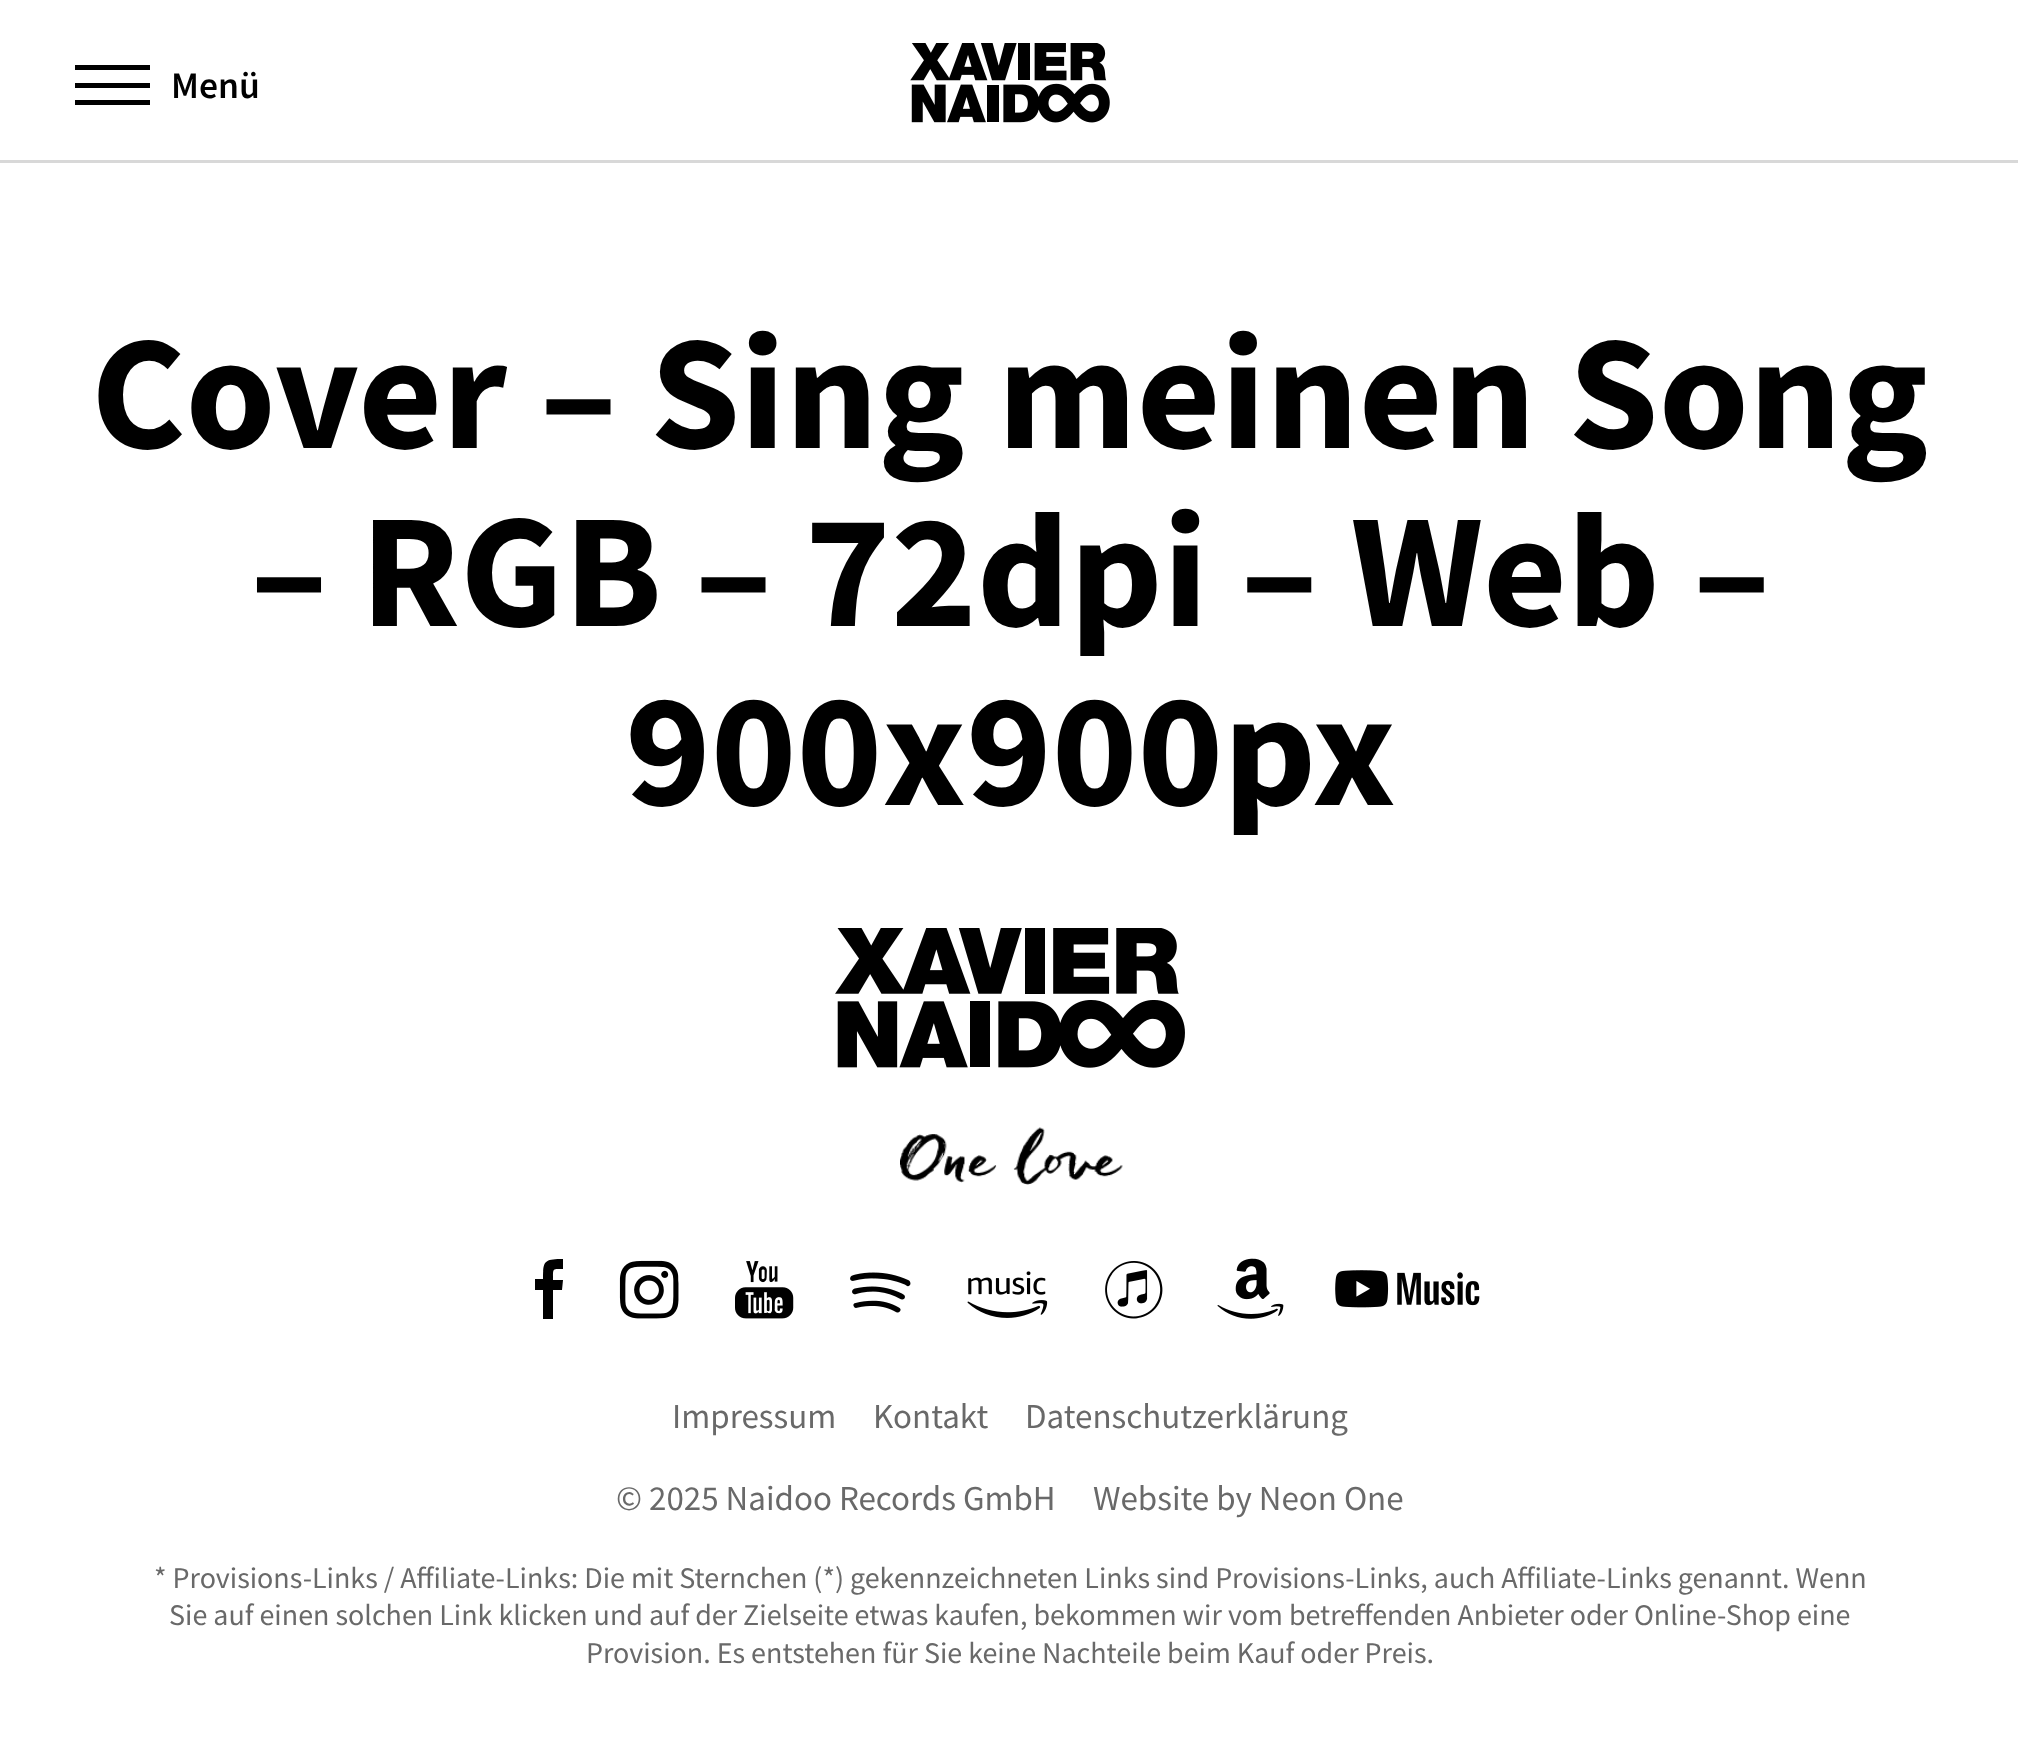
<svg xmlns="http://www.w3.org/2000/svg" width="2018" height="1745" viewBox="0 0 2018 1745">
  <style>
    .t1 { font: 600 37.5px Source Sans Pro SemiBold; fill: #000; }
    .t2 { font: bold 162.5px Source Sans Pro; fill: #000; }
    .t3 { font: 35px Source Sans Pro; fill: #696969; }
    .t4 { font: 30px Source Sans Pro; fill: #696969; }
  </style>
  <rect width="100%" height="100%" fill="#fff"/>
  <rect x="0" y="160" width="2018" height="3" fill="#d8d8d8"/>
  <rect x="75" y="65" width="75" height="5" fill="#000"/>
  <rect x="75" y="83" width="75" height="5" fill="#000"/>
  <rect x="75" y="100" width="75" height="5" fill="#000"/>
  <text x="171" y="98" class="t1">Menü</text>
  <image x="910" y="43" width="200" height="80" href="images/1.png"/>
  <text x="91" y="448" class="t2">Cover – Sing meinen Song</text>
  <text x="250" y="626" class="t2">– RGB – 72dpi – Web –</text>
  <text x="625" y="805" class="t2">900x900px</text>
  <image x="835" y="928" width="350" height="140" href="images/2.png"/>
  <image x="900" y="1127" width="223" height="58" href="images/3.png"/>
  <path d="M563 1280H553C553 1268 552 1269 563 1269V1259C544 1259 543 1261 543 1279H535V1290H543V1319H553V1290H562Z" fill="#000"/>
  <image x="619" y="1260" width="60" height="59" href="images/4.png"/>
  <image x="735" y="1261" width="59" height="58" href="images/5.png"/>
  <image x="850" y="1272" width="61" height="41" href="images/6.png"/>
  <image x="967" y="1271" width="81" height="47" href="images/7.png"/>
  <image x="1105" y="1261" width="58" height="58" href="images/8.png"/>
  <image x="1217" y="1258" width="67" height="61" href="images/9.png"/>
  <image x="1335" y="1270" width="145" height="38" href="images/10.png"/>
  <text x="672" y="1428" class="t3">Impressum</text>
  <text x="873" y="1428" class="t3">Kontakt</text>
  <text x="1025" y="1428" class="t3">Datenschutzerklärung</text>
  <text x="616" y="1510" class="t3">© 2025 Naidoo Records GmbH</text>
  <text x="1093" y="1510" class="t3">Website by Neon One</text>
  <text x="154" y="1588" class="t4">* Provisions-Links / Affiliate-Links: Die mit Sternchen (*) gekennzeichneten Links sind Provisions-Links, auch Affiliate-Links genannt. Wenn</text>
  <text x="169" y="1625" class="t4">Sie auf einen solchen Link klicken und auf der Zielseite etwas kaufen, bekommen wir vom betreffenden Anbieter oder Online-Shop eine</text>
  <text x="586" y="1663" class="t4">Provision. Es entstehen für Sie keine Nachteile beim Kauf oder Preis.</text>
</svg>
